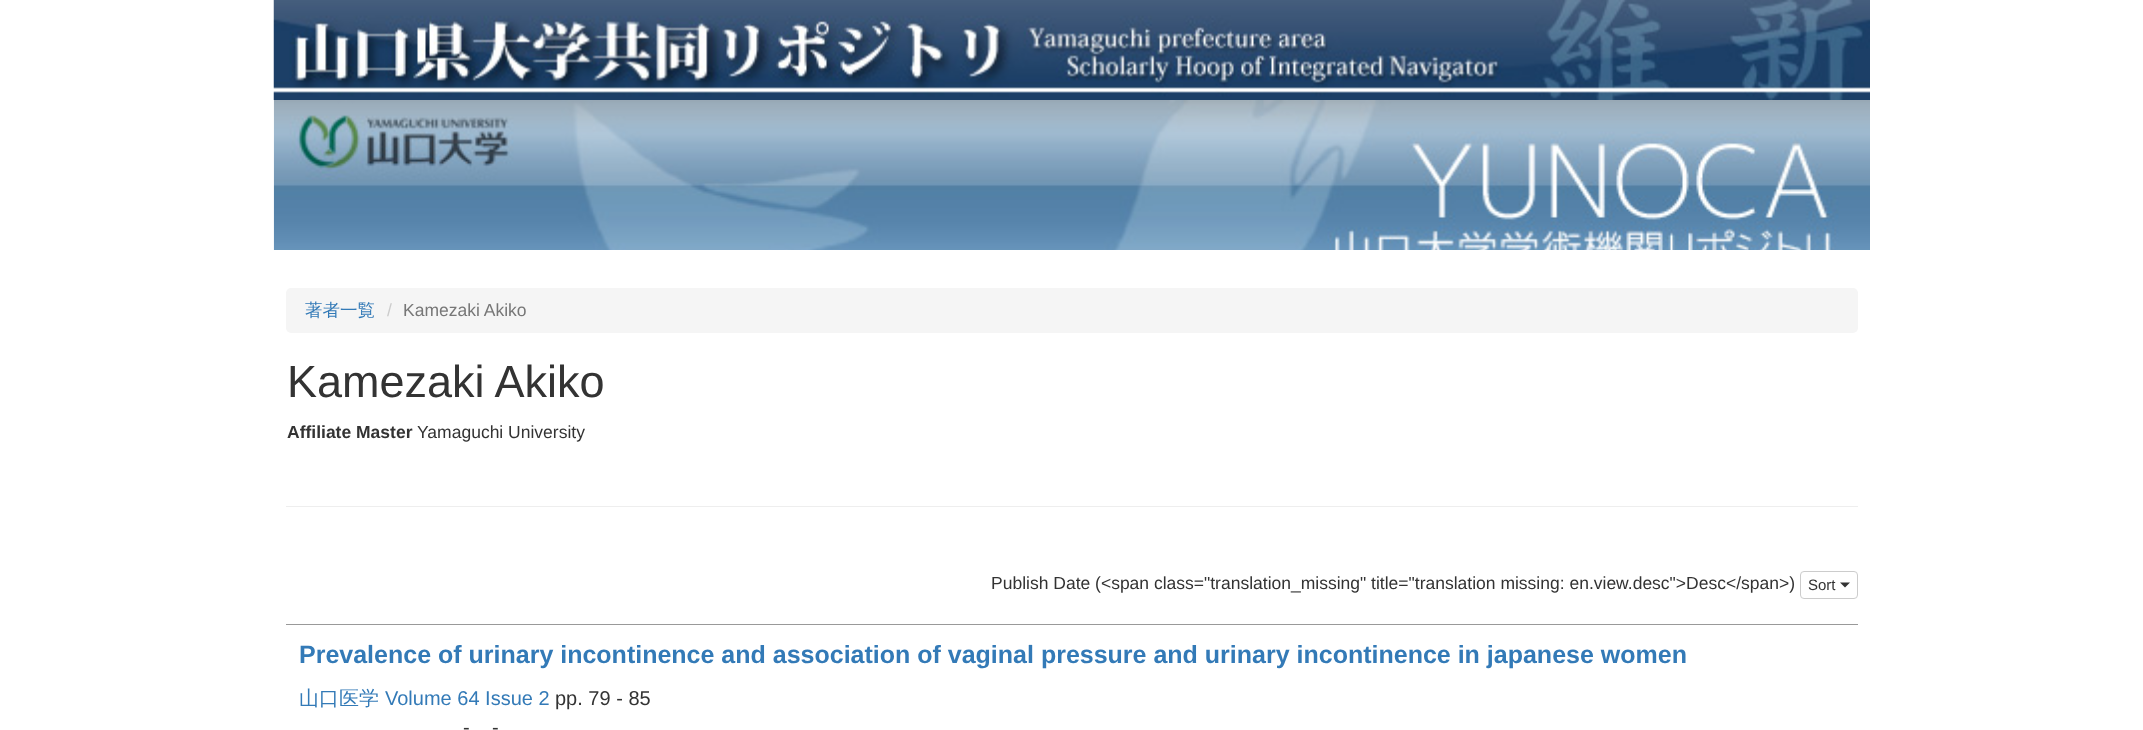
<svg xmlns="http://www.w3.org/2000/svg" width="2143" height="730" viewBox="0 0 2143 730">
  <style>
    .t1 { font: 500 17.5px WenQuanYi Zen Hei; fill: #337ab7; }
    .t2 { font: 17.5px Liberation Sans; fill: #ccc; }
    .t3 { font: 17.5px Liberation Sans; fill: #777; }
    .t4 { font: 45px Liberation Sans; fill: #333; }
    .t5 { font: bold 17.5px Liberation Sans; fill: #333; }
    .t6 { font: 17.5px Liberation Sans; fill: #333; }
    .t7 { font: 15px Liberation Sans; fill: #333; }
    .t8 { font: bold 25px Liberation Sans; fill: #337ab7; }
    .t9 { font: 500 20px WenQuanYi Zen Hei; fill: #337ab7; }
    .t10 { font: 20px Liberation Sans; fill: #337ab7; }
    .t11 { font: 20px Liberation Sans; fill: #333; }
  </style>
  <rect width="100%" height="100%" fill="#fff"/>
  <image x="273" y="0" width="1597" height="100" href="images/1.png"/>
  <image x="273" y="100" width="1597" height="150" href="images/2.png"/>
  <rect x="286" y="288" width="1572" height="45" rx="5" fill="#f5f5f5"/>
  <text x="305" y="316" class="t1">著者一覧</text>
  <text x="387" y="316" class="t2">/</text>
  <text x="403" y="316" class="t3">Kamezaki Akiko</text>
  <text x="287" y="397" class="t4">Kamezaki Akiko</text>
  <text x="287" y="438" class="t5">Affiliate Master</text>
  <text x="417" y="438" class="t6">Yamaguchi University</text>
  <rect x="286" y="506" width="1572" height="1" fill="#eee"/>
  <text x="991" y="589" class="t6">Publish Date (&lt;span class="translation_missing" title="translation missing: en.view.desc"&gt;Desc&lt;/span&gt;)</text>
  <rect x="1800.5" y="571.5" width="57" height="27" rx="3.5" fill="none" stroke="#ccc"/>
  <text x="1808" y="590" class="t7">Sort</text>
  <path d="M1840 582.5H1850L1845 587.5Z" fill="#333"/>
  <rect x="286" y="624" width="1572" height="1" fill="#999"/>
  <text x="299" y="663" class="t8">Prevalence of urinary incontinence and association of vaginal pressure and urinary incontinence in japanese women</text>
  <text x="299" y="705" class="t9">山口医学</text>
  <text x="385" y="705" class="t10">Volume 64 Issue 2</text>
  <text x="555" y="705" class="t11">pp. 79 - 85</text>
  <text x="463" y="734" class="t11">-</text>
  <text x="492" y="734" class="t11">-</text>
</svg>
